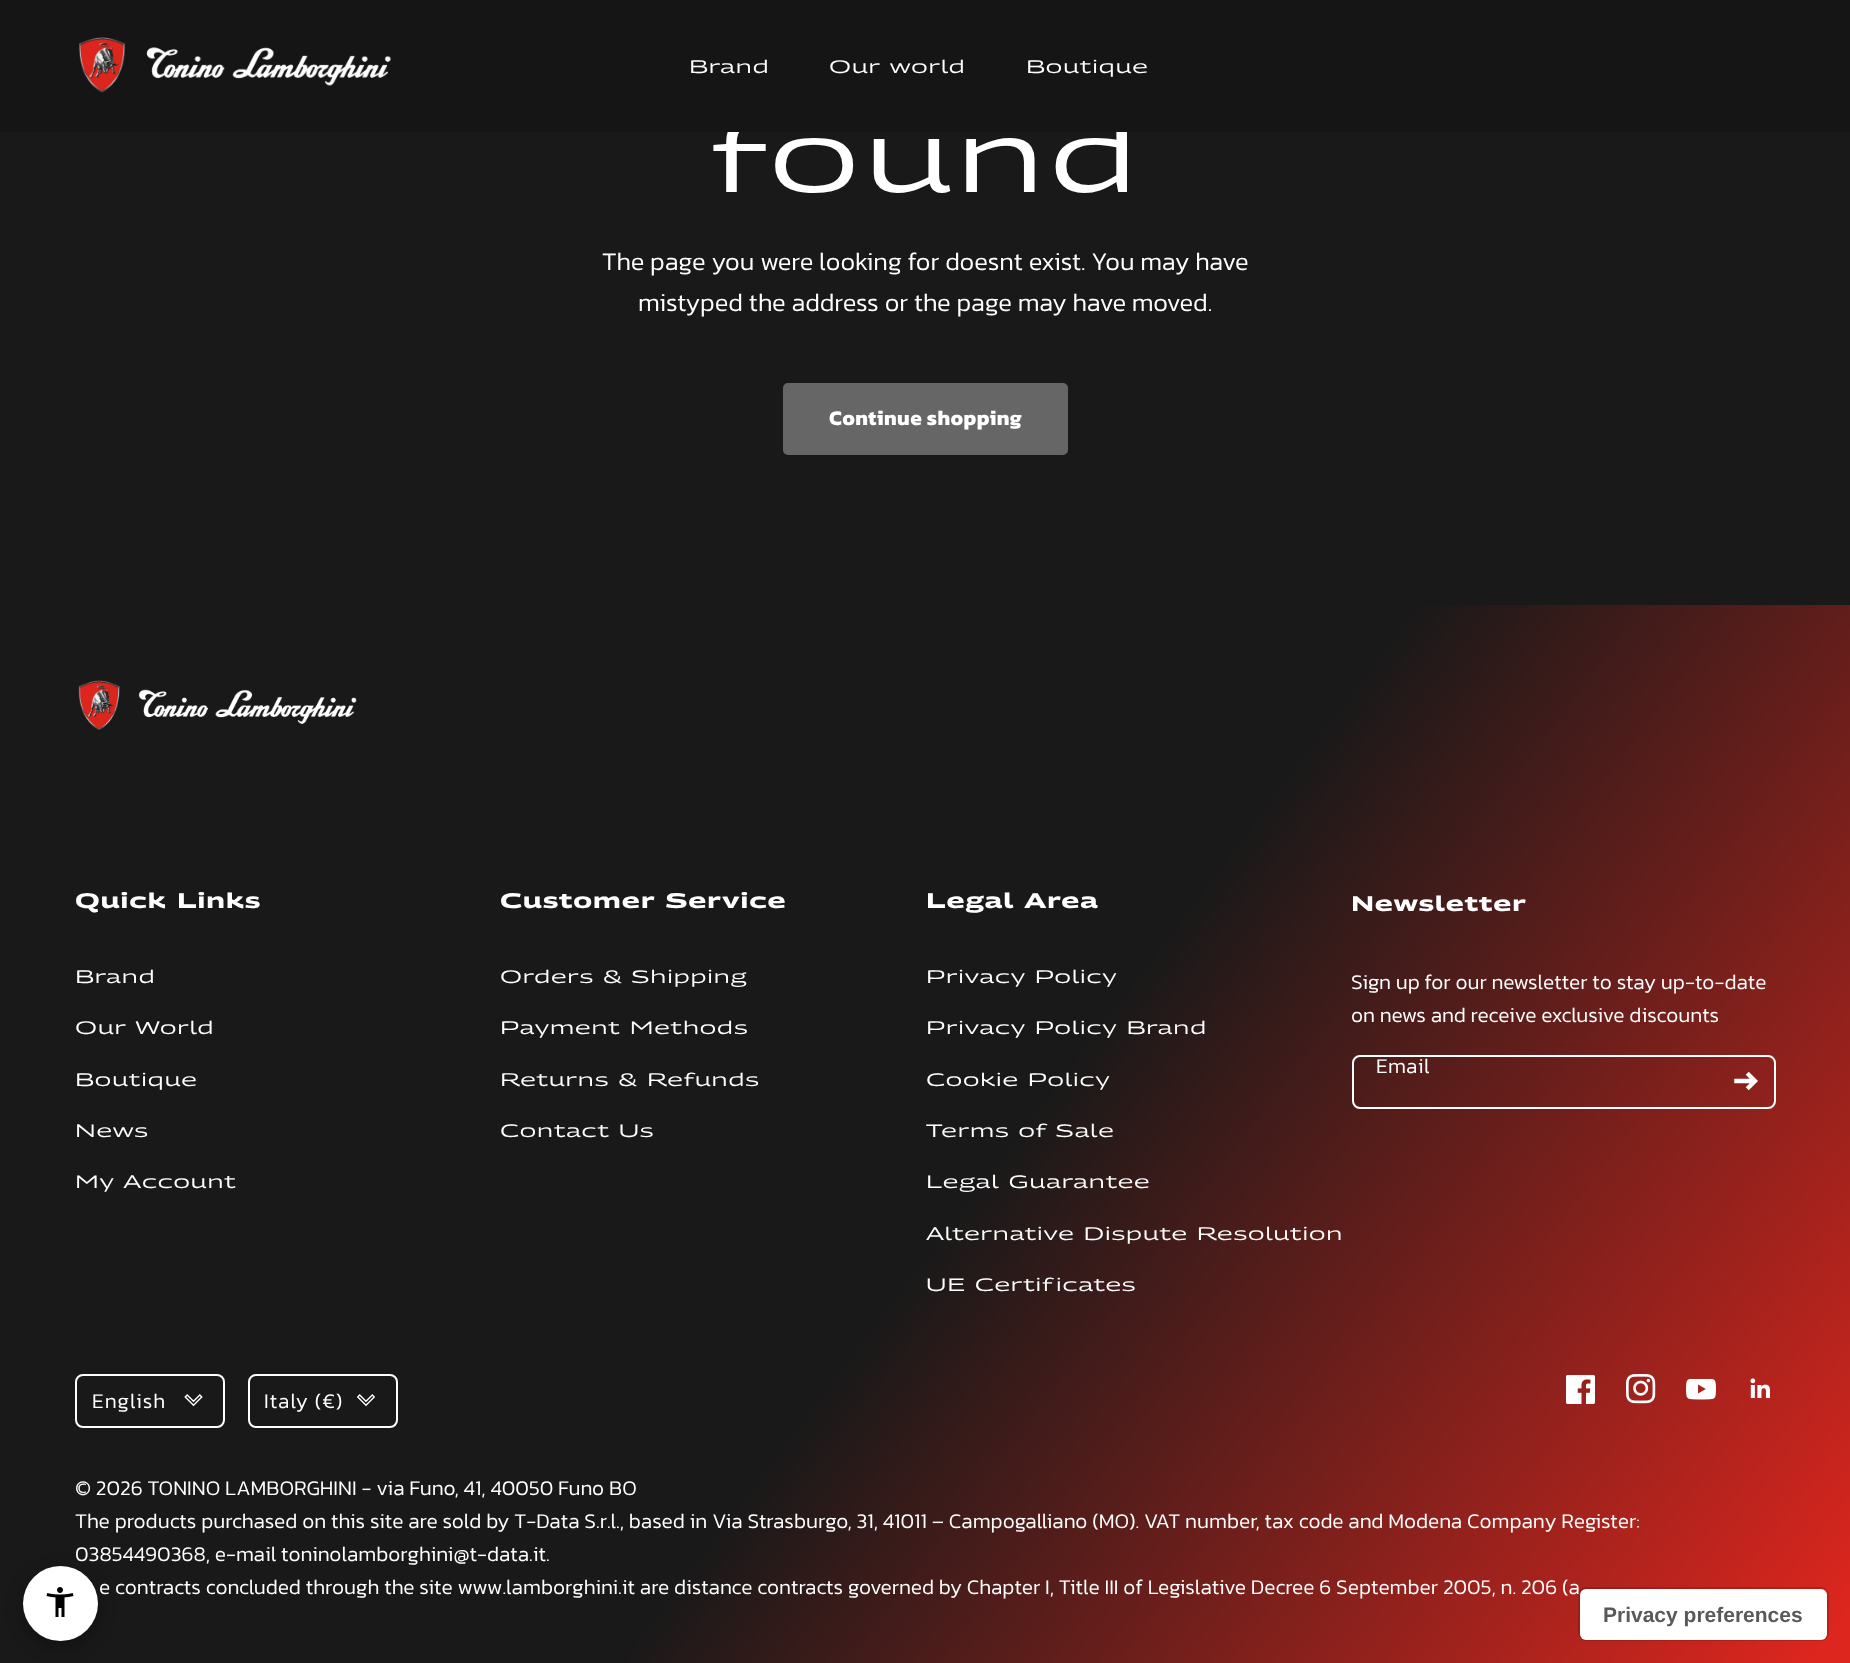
<svg xmlns="http://www.w3.org/2000/svg" width="1850" height="1663" viewBox="0 0 1850 1663">
  <style>
    .t1 { font: 99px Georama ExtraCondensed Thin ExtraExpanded; letter-spacing: 5px; fill: #fff; }
    .t2 { font: 18px Georama ExtraCondensed Thin ExtraExpanded; letter-spacing: 0.9px; fill: #fff; }
    .t3 { font: 300 25.5px Kanit; fill: #fff; }
    .t4 { font: bold 21px Kanit; letter-spacing: 0.4px; fill: #fff; }
    .t5 { font: bold 21px Georama ExtraCondensed Thin ExtraExpanded; letter-spacing: 1px; fill: #fff; }
    .t6 { font: 300 21px Kanit; fill: #fff; }
    .t7 { font: 300 21px Kanit; letter-spacing: 0.4px; fill: #fff; }
    .t8 { font: 300 21px Kanit; letter-spacing: 1px; fill: #fff; }
    .t9 { font: bold 21px Liberation Sans; fill: #595959; }
  </style>
  <defs>
    <linearGradient id="g1" gradientUnits="userSpaceOnUse" x1="77" y1="503" x2="1774" y2="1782"><stop offset="0.53" stop-color="#191919"/><stop offset="0.98" stop-color="#dc261e"/></linearGradient>
  </defs>
  <rect width="100%" height="100%" fill="#191919"/>
  <rect x="23" y="1572" width="75" height="75" rx="37.5" fill="#0000004d" filter="blur(9px)"/>
  <circle cx="60.5" cy="1603.5" r="37.5" fill="#fff"/>
  <image x="46" y="1587" width="28" height="30" href="images/1.png"/>
  <text x="710" y="192" class="t1">found</text>
  <rect x="0" y="0" width="1850" height="132" fill="#151515"/>
  <image x="79" y="37" width="312" height="56" href="images/2.png"/>
  <text x="689" y="73" class="t2">Brand</text>
  <text x="829" y="73" class="t2">Our world</text>
  <text x="1026" y="73" class="t2">Boutique</text>
  <text x="602" y="270" class="t3">The page you were looking for doesnt exist. You may have</text>
  <text x="638" y="311" class="t3">mistyped the address or the page may have moved.</text>
  <rect x="784" y="384" width="283" height="70" rx="4" fill="#666" stroke="#666" stroke-width="2"/>
  <text x="829" y="425" class="t4">Continue shopping</text>
  <rect x="629" y="605" width="1221" height="1058" fill="url(#g1)"/>
  <image x="78" y="680" width="279" height="50" href="images/3.png"/>
  <text x="75" y="908" class="t5">Quick Links</text>
  <text x="75" y="983" class="t2">Brand</text>
  <text x="75" y="1034" class="t2">Our World</text>
  <text x="75" y="1086" class="t2">Boutique</text>
  <text x="75" y="1137" class="t2">News</text>
  <text x="75" y="1188" class="t2">My Account</text>
  <text x="500" y="908" class="t5">Customer Service</text>
  <text x="500" y="983" class="t2">Orders &amp; Shipping</text>
  <text x="500" y="1034" class="t2">Payment Methods</text>
  <text x="500" y="1086" class="t2">Returns &amp; Refunds</text>
  <text x="500" y="1137" class="t2">Contact Us</text>
  <text x="926" y="908" class="t5">Legal Area</text>
  <text x="926" y="983" class="t2">Privacy Policy</text>
  <text x="926" y="1034" class="t2">Privacy Policy Brand</text>
  <text x="926" y="1086" class="t2">Cookie Policy</text>
  <text x="926" y="1137" class="t2">Terms of Sale</text>
  <text x="926" y="1188" class="t2">Legal Guarantee</text>
  <text x="926" y="1240" class="t2">Alternative Dispute Resolution</text>
  <text x="926" y="1291" class="t2">UE Certificates</text>
  <text x="1351" y="911" class="t5">Newsletter</text>
  <text x="1351" y="989" class="t6">Sign up for our newsletter to stay up-to-date</text>
  <text x="1351" y="1022" class="t6">on news and receive exclusive discounts</text>
  <rect x="1353" y="1056" width="422" height="52" rx="7" fill="none" stroke="#fff" stroke-width="2"/>
  <text x="1376" y="1073" class="t7">Email</text>
  <image x="1734" y="1071" width="24" height="20" href="images/4.png"/>
  <rect x="76" y="1375" width="148" height="52" rx="7" fill="none" stroke="#fff" stroke-width="2"/>
  <text x="92" y="1408" class="t8">English</text>
  <image x="184" y="1394" width="19" height="13" href="images/5.png"/>
  <rect x="249" y="1375" width="148" height="52" rx="7" fill="none" stroke="#fff" stroke-width="2"/>
  <text x="264" y="1408" class="t8">Italy (€)</text>
  <image x="357" y="1394" width="18" height="13" href="images/6.png"/>
  <image x="1566" y="1375" width="29" height="29" href="images/7.png"/>
  <image x="1626" y="1374" width="30" height="30" href="images/8.png"/>
  <image x="1686" y="1379" width="30" height="21" href="images/9.png"/>
  <image x="1750" y="1378" width="20" height="20" href="images/10.png"/>
  <text x="75" y="1495" class="t6">© 2026 TONINO LAMBORGHINI - via Funo, 41, 40050 Funo BO</text>
  <text x="75" y="1528" class="t6">The products purchased on this site are sold by T-Data S.r.l., based in Via Strasburgo, 31, 41011 – Campogalliano (MO). VAT number, tax code and Modena Company Register:</text>
  <text x="75" y="1561" class="t6">03854490368, e-mail toninolamborghini@t-data.it.</text>
  <text x="99" y="1594" class="t6">e contracts concluded through the site www.lamborghini.it are distance contracts governed by Chapter I, Title III of Legislative Decree 6 September 2005, n. 206 (a</text>
  <rect x="1579" y="1588" width="249" height="52" rx="7" fill="none" stroke="#00000026" stroke-width="2"/>
  <rect x="1580" y="1589" width="247" height="51" rx="6" fill="#fff"/>
  <text x="1603" y="1622" class="t9">Privacy preferences</text>
</svg>
